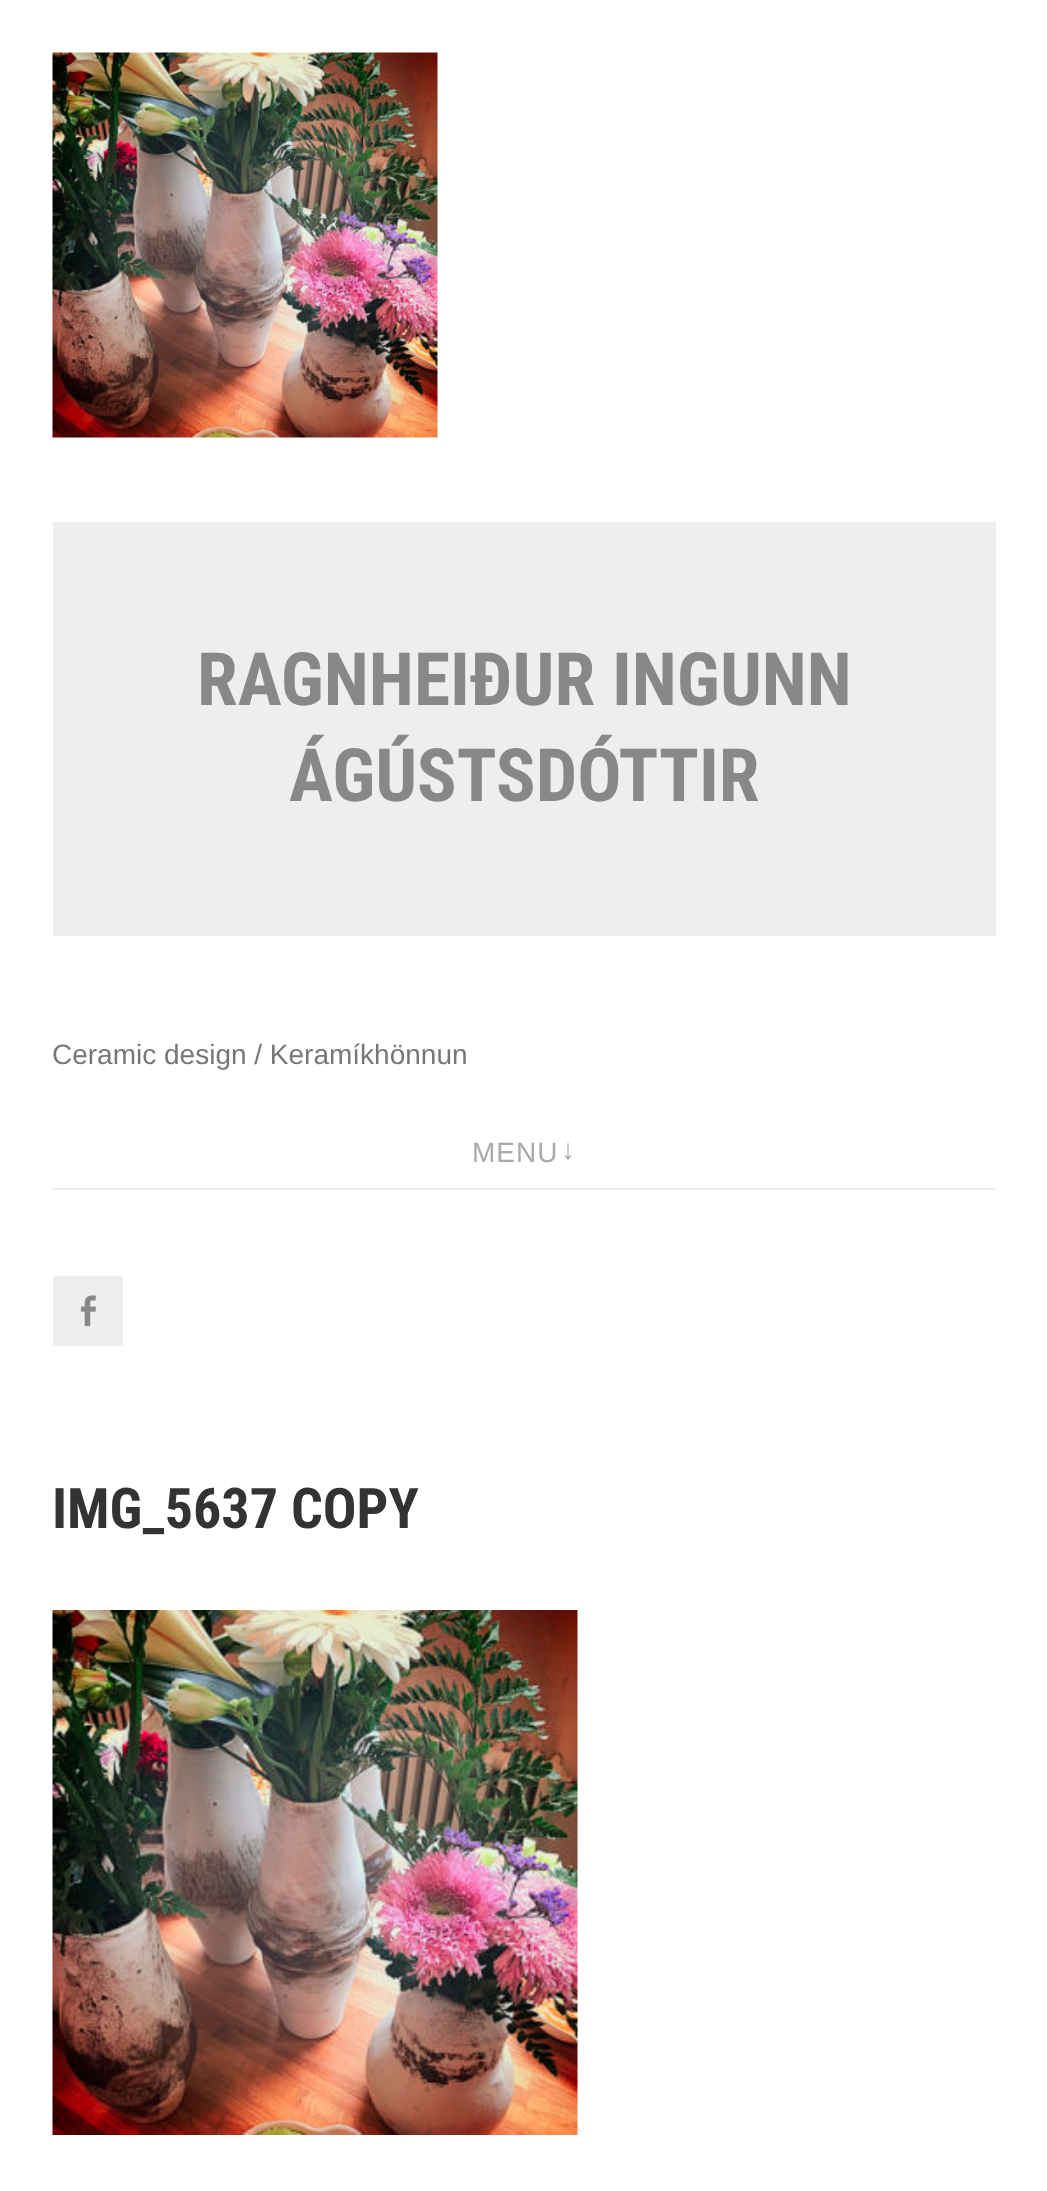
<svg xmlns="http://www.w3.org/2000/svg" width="1047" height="2191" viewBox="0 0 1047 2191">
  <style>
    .t1 { font: bold 73.5px Roboto Condensed; fill: #888; }
    .t2 { font: 28px Arimo; fill: #777; }
    .t3 { font: 28px Arimo; letter-spacing: 1px; fill: #aaa; }
    .t4 { font: bold 56px Roboto Condensed; fill: #333; }
  </style>
  <rect width="100%" height="100%" fill="#fff"/>
  <image x="52" y="52" width="386" height="386" href="images/1.png"/>
  <rect x="53" y="522" width="943" height="414" fill="#eee"/>
  <text x="197" y="705" class="t1">RAGNHEIÐUR INGUNN</text>
  <text x="289" y="801" class="t1">ÁGÚSTSDÓTTIR</text>
  <text x="52" y="1064" class="t2">Ceramic design / Keramíkhönnun</text>
  <rect x="53" y="1188" width="943" height="2" fill="#f0f0f0"/>
  <text x="472" y="1162" class="t3">MENU</text>
  <text x="561" y="1159" class="t3">↓</text>
  <rect x="53" y="1276" width="70" height="70" fill="#eee"/>
  <image x="80" y="1295" width="16" height="32" href="images/2.png"/>
  <text x="52" y="1528" class="t4">IMG_5637 COPY</text>
  <image x="52" y="1610" width="526" height="525" href="images/3.png"/>
</svg>
